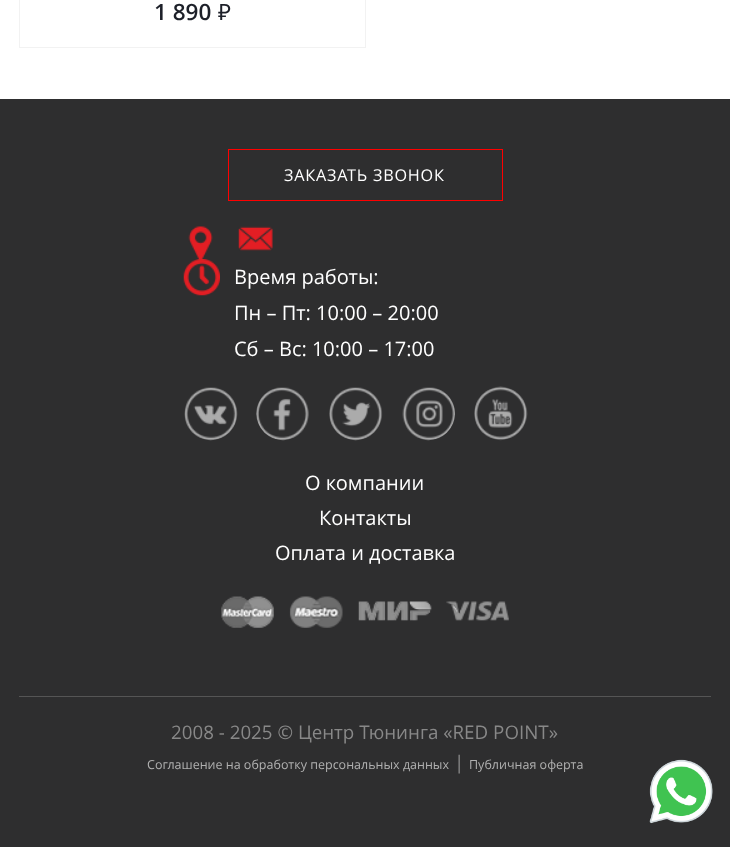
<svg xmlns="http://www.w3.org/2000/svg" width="730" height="847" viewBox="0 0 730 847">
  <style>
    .t1 { font: 600 22.5px Open Sans; fill: #1d2029; }
    .t2 { font: 22.5px Noto Sans; fill: #1d2029; }
    .t3 { font: 16.25px Open Sans; letter-spacing: 0.75px; fill: #fff; }
    .t4 { font: 20px Open Sans; fill: #fff; }
    .t5 { font: 18.75px Open Sans; fill: #888; }
    .t6 { font: 12.5px Open Sans; fill: #b0b0b0; }
  </style>
  <rect width="100%" height="100%" fill="#fff"/>
  <rect x="19.5" y="-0.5" width="346" height="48" fill="none" stroke="#f2f2f2"/>
  <text x="154" y="20" class="t1">1 890</text>
  <text x="218" y="20" class="t2">₽</text>
  <rect x="0" y="99" width="730" height="748" fill="#2e2e2f"/>
  <rect x="228.5" y="149.5" width="274" height="51" fill="none" stroke="#f00"/>
  <text x="284" y="181" class="t3">ЗАКАЗАТЬ ЗВОНОК</text>
  <image x="188" y="226" width="25" height="37" href="images/1.png"/>
  <image x="238" y="226" width="35" height="25" href="images/2.png"/>
  <image x="183" y="259" width="37" height="37" href="images/3.png"/>
  <text x="234" y="284" class="t4">Время работы:</text>
  <text x="234" y="320" class="t4">Пн – Пт: 10:00 – 20:00</text>
  <text x="234" y="356" class="t4">Сб – Вс: 10:00 – 17:00</text>
  <image x="184" y="387" width="54" height="54" href="images/4.png"/>
  <image x="256" y="387" width="53" height="54" href="images/5.png"/>
  <image x="329" y="387" width="54" height="54" href="images/6.png"/>
  <image x="402" y="387" width="53" height="54" href="images/7.png"/>
  <image x="474" y="386" width="54" height="55" href="images/8.png"/>
  <text x="305" y="490" class="t4">О компании</text>
  <text x="319" y="525" class="t4">Контакты</text>
  <text x="275" y="560" class="t4">Оплата и доставка</text>
  <image x="221" y="596" width="288" height="32" href="images/9.png"/>
  <rect x="19" y="696" width="692" height="1" fill="#555"/>
  <text x="171" y="739" class="t5">2008 - 2025 © Центр Тюнинга «RED POINT»</text>
  <text x="147" y="769" class="t6">Соглашение на обработку персональных данных</text>
  <text x="454" y="769" class="t5">|</text>
  <text x="469" y="769" class="t6">Публичная оферта</text>
  <image x="649" y="759" width="64" height="65" href="images/10.png"/>
</svg>
